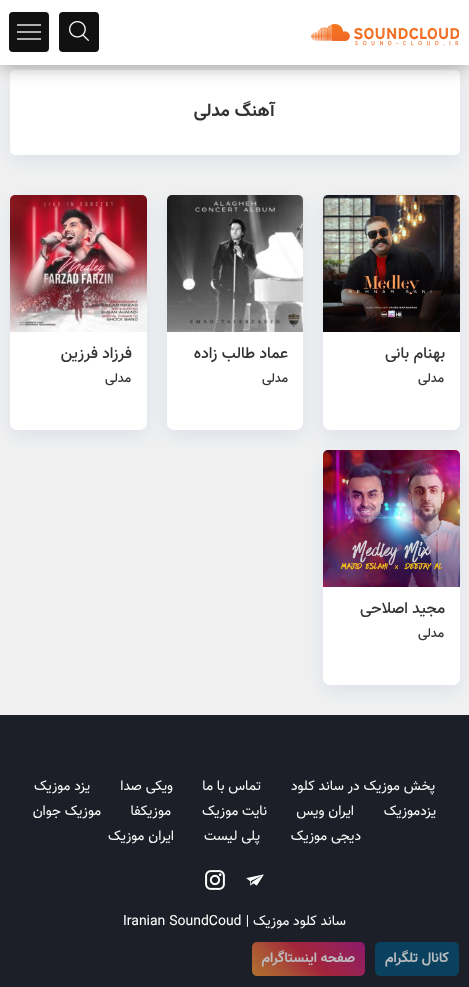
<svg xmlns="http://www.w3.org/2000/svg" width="469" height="987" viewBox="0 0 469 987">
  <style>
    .t1 { font: bold 18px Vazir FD; direction: rtl; fill: #333; }
    .t2 { font: 500 16px Vazir FD; direction: rtl; fill: #333; }
    .t3 { font: 500 13px Vazir FD; direction: rtl; fill: #333; }
    .t4 { font: 14px Vazir FD; direction: rtl; fill: #fff; }
    .t5 { font: 14px Vazir FD; fill: #fff; }
    .t6 { font: bold 14px Vazir FD; direction: rtl; fill: #bbbcbf; }
  </style>
  <defs>
    <linearGradient id="g1" gradientUnits="userSpaceOnUse" x1="272" y1="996" x2="345" y2="922"><stop offset="0" stop-color="#b17130"/><stop offset="0.25" stop-color="#aa5236"/><stop offset="0.5" stop-color="#a3253b"/><stop offset="0.75" stop-color="#982253"/><stop offset="1" stop-color="#8c1a6b"/></linearGradient>
  </defs>
  <rect width="100%" height="100%" fill="#f1f1f1"/>
  <rect x="10" y="76" width="450" height="85" rx="5" fill="#1c4c9c1a" filter="blur(10px)"/>
  <rect x="10" y="70" width="450" height="85" rx="5" fill="#fff"/>
  <rect x="0" y="0" width="469" height="65" fill="#00000066" filter="blur(10px)"/>
  <rect x="0" y="0" width="469" height="65" fill="#fff"/>
  <image x="311" y="24" width="148" height="22" href="images/1.png"/>
  <rect x="59" y="12" width="40" height="40" rx="4" fill="#111"/>
  <image x="69" y="21" width="20" height="20" href="images/2.png"/>
  <rect x="9" y="12" width="40" height="40" rx="4" fill="#111"/>
  <rect x="17" y="31" width="24" height="2" fill="#afafaf"/>
  <rect x="17" y="24" width="24" height="2" fill="#afafaf"/>
  <rect x="17" y="38" width="24" height="2" fill="#afafaf"/>
  <text x="275" y="116" class="t1">آهنگ مدلی</text>
  <rect x="323" y="201" width="137" height="235" rx="7" fill="#1c4c9c1a" filter="blur(10px)"/>
  <rect x="323" y="195" width="137" height="235" rx="7" fill="#fff"/>
  <image x="323" y="195" width="137" height="137" href="images/3.png"/>
  <text x="445" y="358" class="t2">بهنام بانی</text>
  <text x="444" y="382" class="t3">مدلی</text>
  <rect x="167" y="201" width="136" height="235" rx="7" fill="#1c4c9c1a" filter="blur(10px)"/>
  <rect x="167" y="195" width="136" height="235" rx="7" fill="#fff"/>
  <image x="167" y="195" width="136" height="137" href="images/4.png"/>
  <text x="288" y="358" class="t2">عماد طالب زاده</text>
  <text x="288" y="382" class="t3">مدلی</text>
  <rect x="10" y="201" width="137" height="235" rx="7" fill="#1c4c9c1a" filter="blur(10px)"/>
  <rect x="10" y="195" width="137" height="235" rx="7" fill="#fff"/>
  <image x="10" y="195" width="137" height="137" href="images/5.png"/>
  <text x="132" y="358" class="t2">فرزاد فرزین</text>
  <text x="131" y="382" class="t3">مدلی</text>
  <rect x="323" y="456" width="137" height="235" rx="7" fill="#1c4c9c1a" filter="blur(10px)"/>
  <rect x="323" y="450" width="137" height="235" rx="7" fill="#fff"/>
  <image x="323" y="450" width="137" height="137" href="images/6.png"/>
  <text x="445" y="613" class="t2">مجید اصلاحی</text>
  <text x="444" y="637" class="t3">مدلی</text>
  <rect x="0" y="715" width="469" height="272" fill="#1d1f28"/>
  <text x="435" y="790" class="t4">پخش موزیک در ساند کلود</text>
  <text x="261" y="790" class="t4">تماس با ما</text>
  <text x="173" y="790" class="t4">ویکی صدا</text>
  <text x="90" y="790" class="t4">یزد موزیک</text>
  <text x="436" y="815" class="t4">یزدموزیک</text>
  <text x="354" y="815" class="t4">ایران ویس</text>
  <text x="267" y="815" class="t4">نایت موزیک</text>
  <text x="171" y="815" class="t4">موزیکفا</text>
  <text x="101" y="815" class="t4">موزیک جوان</text>
  <text x="361" y="840" class="t4">دیجی موزیک</text>
  <text x="260" y="840" class="t4">پلی لیست</text>
  <text x="174" y="840" class="t4">ایران موزیک</text>
  <image x="246" y="874" width="18" height="12" href="images/7.png"/>
  <image x="205" y="870" width="20" height="20" href="images/8.png"/>
  <text x="346" y="925" class="t4">ساند کلود موزیک |</text>
  <text x="123" y="925" class="t5">Iranian SoundCoud</text>
  <rect x="375" y="942" width="84" height="34" rx="5" fill="#09415e"/>
  <text x="449" y="962" class="t6">کانال تلگرام</text>
  <rect x="252" y="942" width="113" height="34" rx="5" fill="url(#g1)"/>
  <text x="355" y="962" class="t6">صفحه اینستاگرام</text>
</svg>
